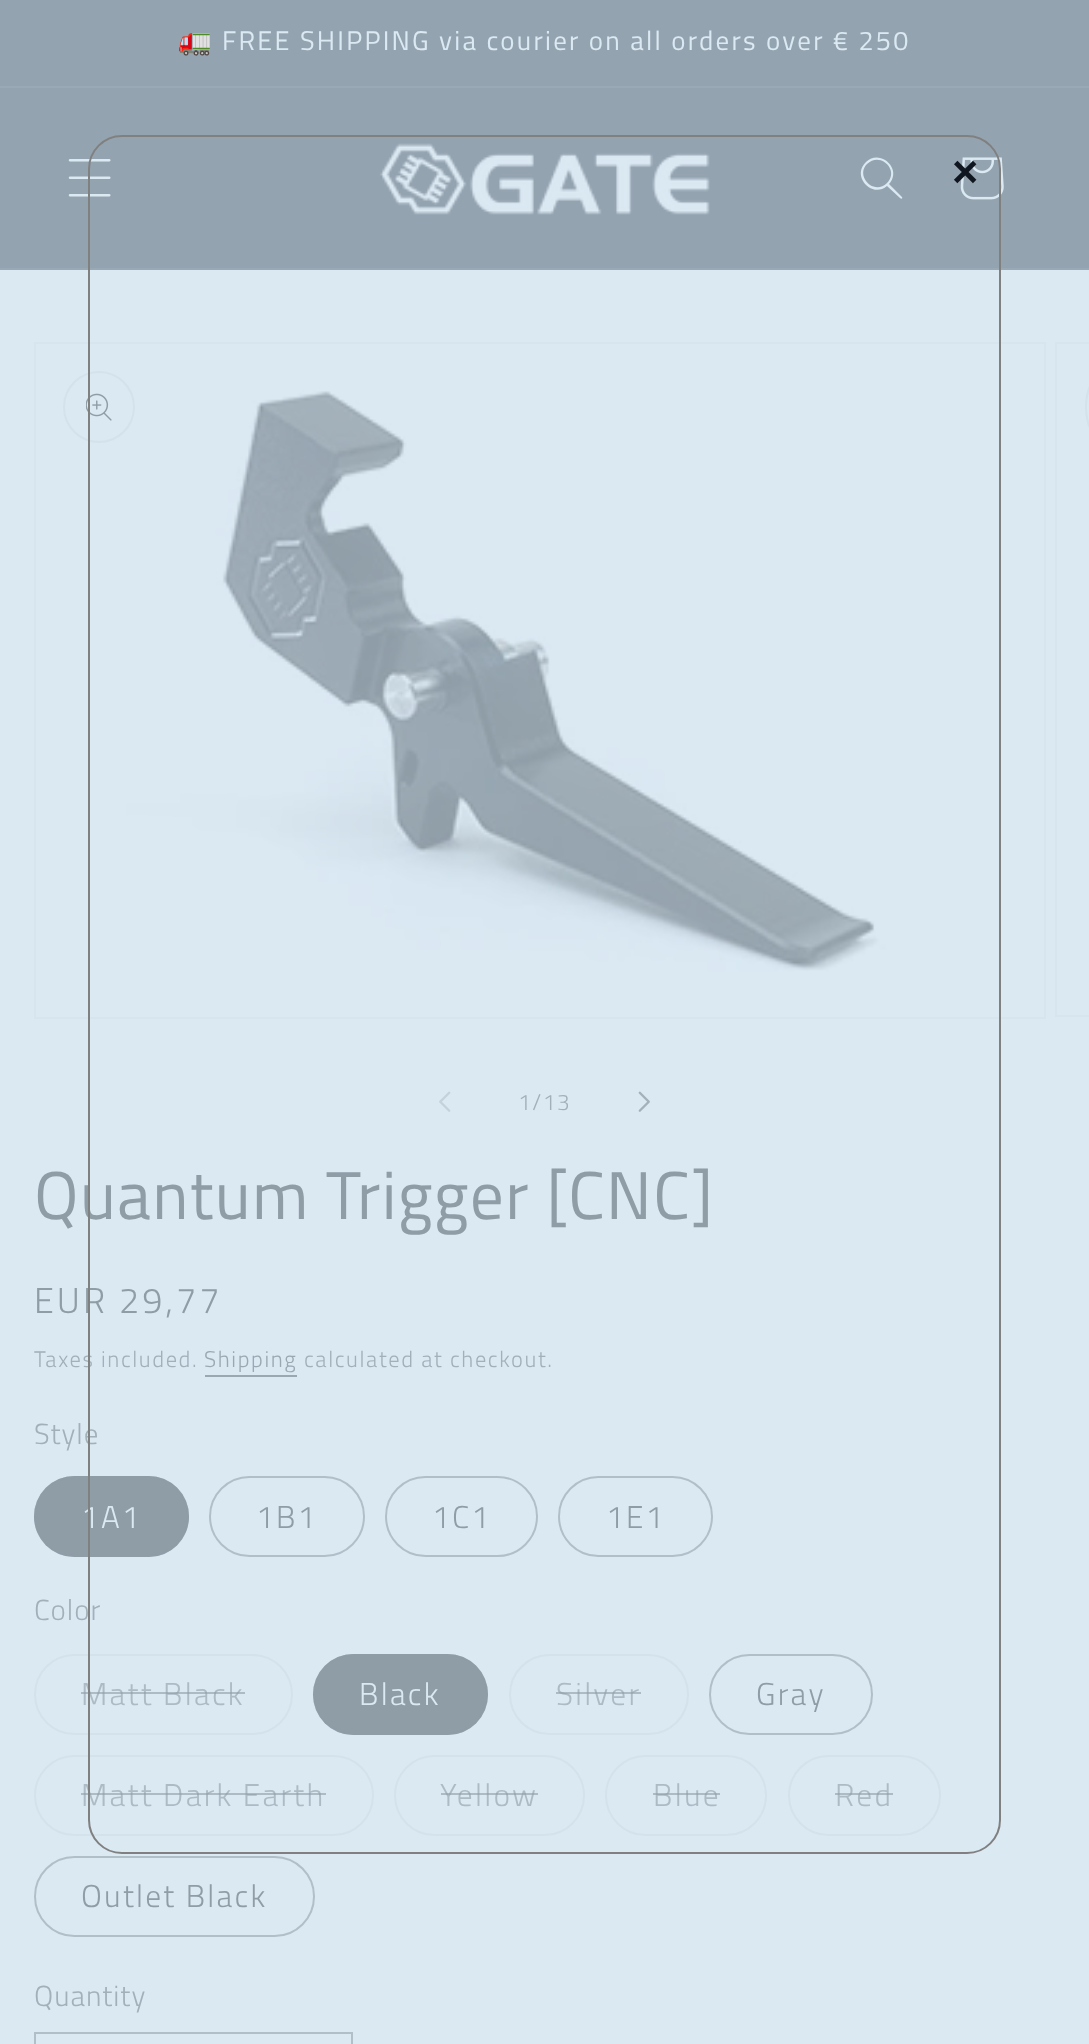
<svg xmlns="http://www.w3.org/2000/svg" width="1089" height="2044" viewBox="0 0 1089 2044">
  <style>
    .t1 { font: 27px Noto Color Emoji; letter-spacing: 2.25px; fill: #dbe9f3; }
    .t2 { font: 27px Titillium Web; letter-spacing: 2.25px; fill: #dbe9f3; }
    .t3 { font: 67.5px Titillium Web; letter-spacing: 1.35px; fill: #8f9da7; }
    .t4 { font: 300 36px Titillium Web; letter-spacing: 3px; fill: #8f9da7; }
    .t5 { font: 300 22.5px Titillium Web; letter-spacing: 1.6px; fill: #a2b0ba; }
    .t6 { font: 300 29px Titillium Web; letter-spacing: 1px; fill: #a2b0ba; }
    .t7 { font: 300 31.5px Titillium Web; letter-spacing: 2.25px; fill: #dbe9f3; }
    .t8 { font: 300 31.5px Titillium Web; letter-spacing: 2.25px; fill: #adbbc5; }
    .t9 { font: bold 45px Liberation Sans; letter-spacing: 1.35px; fill: #10161f; }
    .t10 { font: 300 22.5px Titillium Web; letter-spacing: 1.6px; fill: #9aa8b2; }
    .t11 { font: 300 31.5px Titillium Web; letter-spacing: 2.25px; fill: #8f9da7; }
  </style>
  <rect width="100%" height="100%" fill="#94a3b0"/>
  <rect x="0" y="86" width="1089" height="2" fill="#99a9b5"/>
  <text x="178" y="50" class="t1">🚛</text>
  <text x="222" y="50" class="t2">FREE SHIPPING via courier on all orders over € 250</text>
  <rect x="0" y="268" width="1089" height="2" fill="#99a9b5"/>
  <image x="68" y="159" width="43" height="38" href="images/1.png"/>
  <image x="379" y="143" width="331" height="72" href="images/2.png"/>
  <path d="M887 183C874 196 855 176 867 164C880 151 900 170 887 183M887 186C872 199 851 176 866 162C880 148 903 169 889 184L902 197C903 199 901 199 900 198Z" fill="#dbe9f3" fill-rule="evenodd"/>
  <image x="960" y="157" width="44" height="43" href="images/3.png"/>
  <rect x="0" y="270" width="1089" height="1774" fill="#dbe9f3"/>
  <rect x="35" y="343" width="1010" height="675" fill="none" stroke="#d7e5ef" stroke-width="2"/>
  <image x="126" y="389" width="760" height="583" href="images/5.png"/>
  <circle cx="99" cy="407" r="35" fill="none" stroke="#d4e2ec" stroke-width="2"/>
  <image x="86" y="393" width="26" height="28" href="images/4.png"/>
  <image x="439" y="1091" width="12" height="21" href="images/6.png"/>
  <image x="638" y="1091" width="12" height="21" href="images/7.png"/>
  <text x="34" y="1219" class="t3">Quantum Trigger [CNC]</text>
  <text x="34" y="1313" class="t4">EUR 29,77</text>
  <text x="34" y="1367" class="t5">Taxes included.</text>
  <rect x="205" y="1375" width="92" height="2" fill="#9aa8b2"/>
  <text x="34" y="1444" class="t6">Style</text>
  <rect x="34" y="1476" width="155" height="81" rx="40.5" fill="#8f9da7"/>
  <rect x="35" y="1477" width="153" height="79" rx="39.5" fill="none" stroke="#8f9da78c" stroke-width="2"/>
  <text x="81" y="1528" class="t7">1A1</text>
  <rect x="210" y="1477" width="154" height="79" rx="39.5" fill="none" stroke="#b1bfc9" stroke-width="2"/>
  <rect x="386" y="1477" width="151" height="79" rx="39.5" fill="none" stroke="#b1bfc9" stroke-width="2"/>
  <rect x="559" y="1477" width="153" height="79" rx="39.5" fill="none" stroke="#b1bfc9" stroke-width="2"/>
  <text x="34" y="1620" class="t6">Color</text>
  <rect x="35" y="1655" width="257" height="79" rx="39.5" fill="none" stroke="#d4e2ec" stroke-width="2"/>
  <text x="81" y="1705" class="t8">Matt Black</text>
  <rect x="81" y="1692" width="164" height="2" fill="#8f9da799"/>
  <rect x="313" y="1654" width="175" height="81" rx="40.5" fill="#8f9da7"/>
  <rect x="314" y="1655" width="173" height="79" rx="39.5" fill="none" stroke="#8f9da78c" stroke-width="2"/>
  <rect x="510" y="1655" width="178" height="79" rx="39.5" fill="none" stroke="#d4e2ec" stroke-width="2"/>
  <text x="556" y="1705" class="t8">Silver</text>
  <rect x="556" y="1692" width="85" height="2" fill="#8f9da799"/>
  <rect x="710" y="1655" width="162" height="79" rx="39.5" fill="none" stroke="#b1bfc9" stroke-width="2"/>
  <rect x="35" y="1756" width="338" height="79" rx="39.5" fill="none" stroke="#d4e2ec" stroke-width="2"/>
  <text x="81" y="1806" class="t8">Matt Dark Earth</text>
  <rect x="81" y="1793" width="245" height="2" fill="#8f9da799"/>
  <rect x="395" y="1756" width="189" height="79" rx="39.5" fill="none" stroke="#d4e2ec" stroke-width="2"/>
  <text x="440" y="1806" class="t8">Yellow</text>
  <rect x="441" y="1793" width="97" height="2" fill="#8f9da799"/>
  <rect x="606" y="1756" width="160" height="79" rx="39.5" fill="none" stroke="#d4e2ec" stroke-width="2"/>
  <text x="653" y="1806" class="t8">Blue</text>
  <rect x="653" y="1793" width="67" height="2" fill="#8f9da799"/>
  <rect x="789" y="1756" width="151" height="79" rx="39.5" fill="none" stroke="#d4e2ec" stroke-width="2"/>
  <text x="835" y="1806" class="t8">Red</text>
  <rect x="835" y="1793" width="58" height="2" fill="#8f9da799"/>
  <rect x="89" y="136" width="911" height="1717" rx="33" fill="none" stroke="#808080" stroke-width="2"/>
  <text x="952" y="187" class="t9">×</text>
  <rect x="1056" y="343" width="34" height="673" fill="none" stroke="#d7e5ef" stroke-width="2"/>
  <rect x="1086" y="372" width="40" height="70" rx="35" fill="none" stroke="#d4e2ec" stroke-width="2"/>
  <text x="518" y="1110" class="t5">1/13</text>
  <text x="204" y="1367" class="t10">Shipping</text>
  <text x="304" y="1367" class="t5">calculated at checkout.</text>
  <text x="256" y="1528" class="t11">1B1</text>
  <text x="432" y="1528" class="t11">1C1</text>
  <text x="606" y="1528" class="t11">1E1</text>
  <text x="359" y="1705" class="t7">Black</text>
  <text x="756" y="1705" class="t11">Gray</text>
  <rect x="35" y="1857" width="279" height="79" rx="39.5" fill="none" stroke="#b1bfc9" stroke-width="2"/>
  <text x="81" y="1907" class="t11">Outlet Black</text>
  <text x="34" y="2006" class="t6">Quantity</text>
  <rect x="35" y="2033" width="317" height="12" fill="none" stroke="#b1bfc9" stroke-width="2"/>
</svg>
